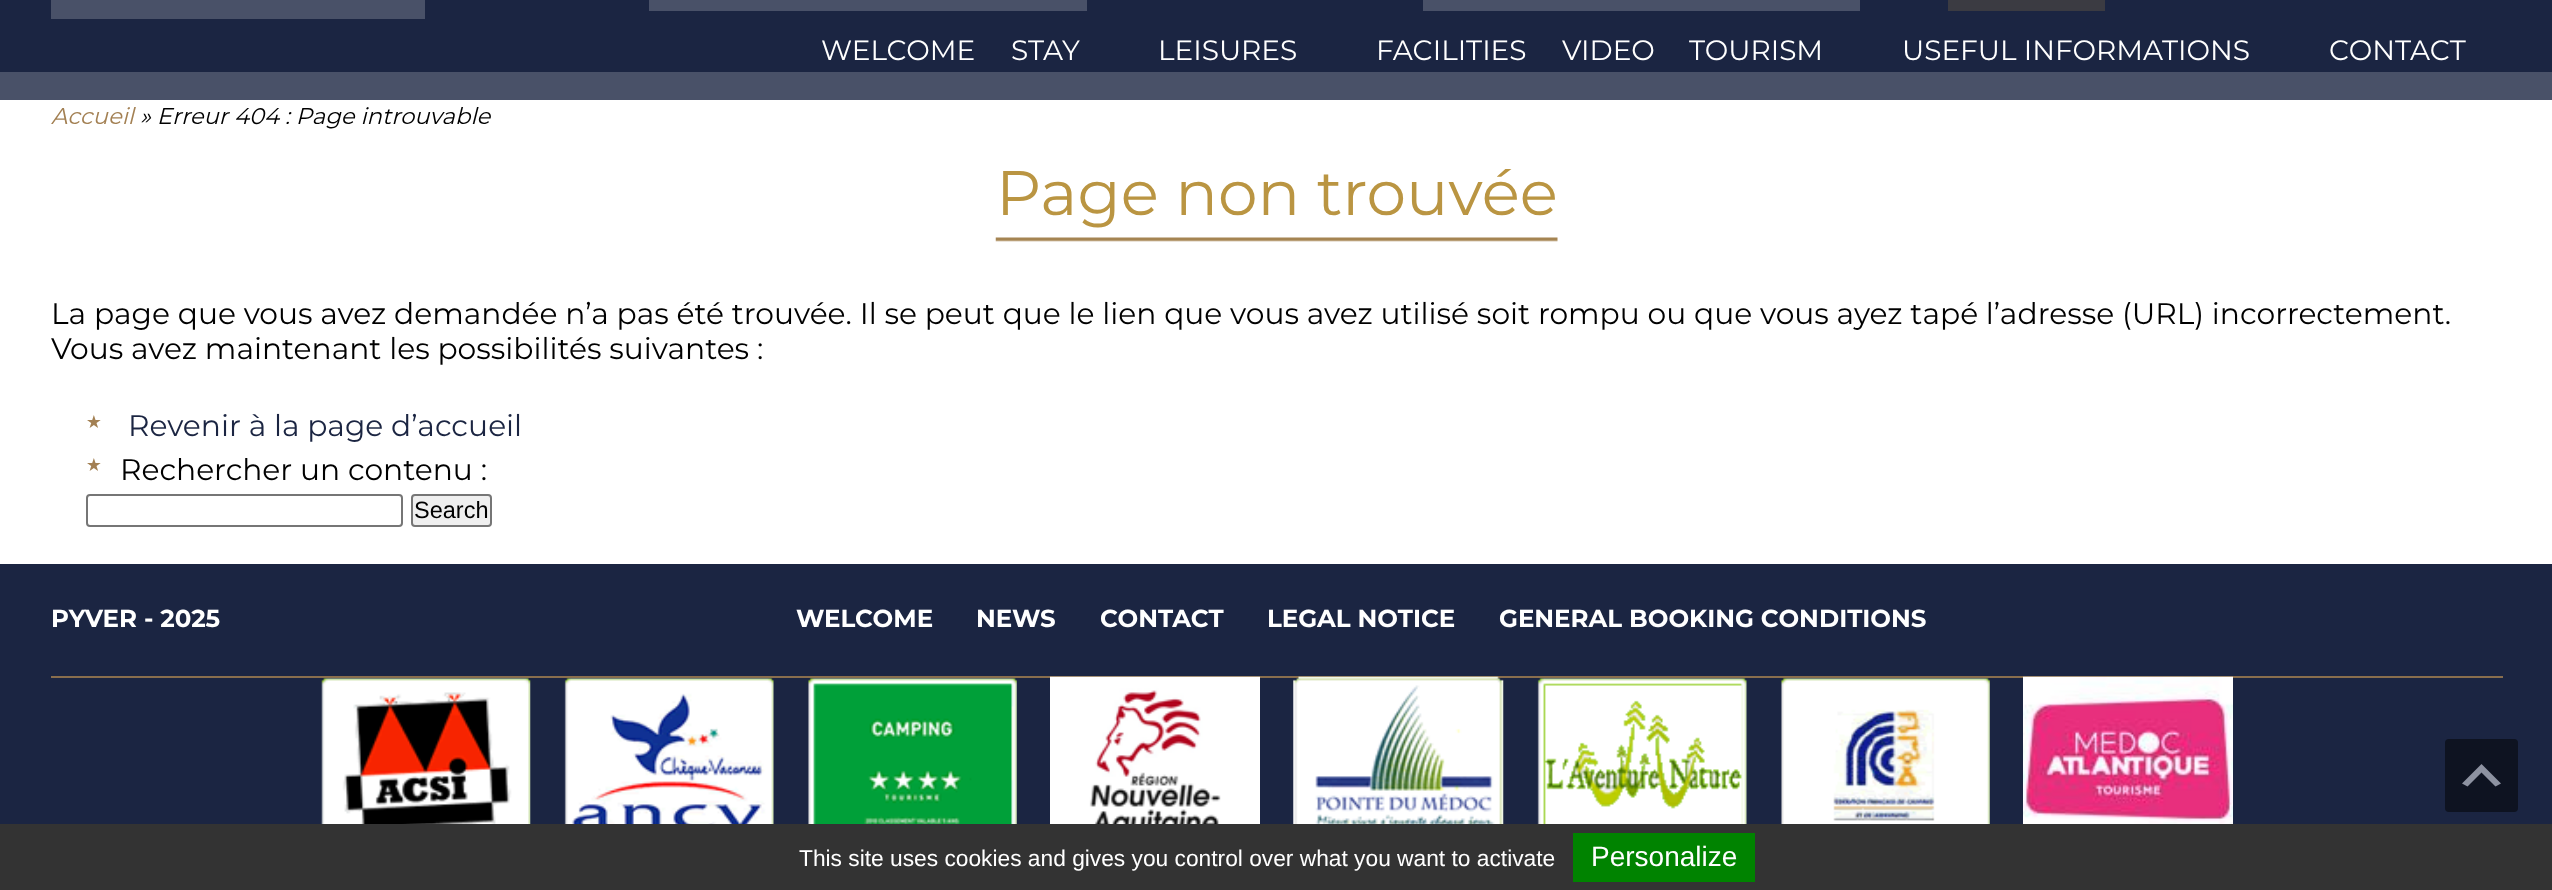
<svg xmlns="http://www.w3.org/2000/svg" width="2552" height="890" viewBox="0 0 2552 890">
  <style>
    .t1 { font: 28px Montserrat; fill: #fff; }
    .t2 { font: italic 22.75px Montserrat; fill: #a38053; }
    .t3 { font: italic 22.75px Montserrat; fill: #000; }
    .t4 { font: 63px Montserrat; fill: #ba9542; }
    .t5 { font: 29.75px Montserrat; fill: #000; }
    .t6 { font: 29.75px DejaVu Sans; direction: rtl; fill: #a38053; }
    .t7 { font: 29.75px Montserrat; fill: #1b2542; }
    .t8 { font: 23.5px Liberation Sans; fill: #000; }
    .t9 { font: bold 24.5px Montserrat; fill: #fff; }
    .t10 { font: 22.75px Liberation Sans; fill: #fff; }
    .t11 { font: 28px Liberation Sans; fill: #fff; }
  </style>
  <rect width="100%" height="100%" fill="#fff"/>
  <rect x="0" y="72" width="2552" height="28" fill="#495168"/>
  <rect x="0" y="0" width="2552" height="72" fill="#1b2542"/>
  <rect x="51" y="0" width="374" height="19" fill="#495168"/>
  <rect x="649" y="0" width="438" height="11" fill="#495168"/>
  <rect x="1423" y="0" width="437" height="11" fill="#495168"/>
  <rect x="1948" y="0" width="157" height="11" fill="#3b3b42"/>
  <text x="821" y="60" class="t1">WELCOME</text>
  <text x="1011" y="60" class="t1">STAY</text>
  <text x="1158" y="60" class="t1">LEISURES</text>
  <text x="1376" y="60" class="t1">FACILITIES</text>
  <text x="1562" y="60" class="t1">VIDEO</text>
  <text x="1689" y="60" class="t1">TOURISM</text>
  <text x="1902" y="60" class="t1">USEFUL INFORMATIONS</text>
  <text x="2329" y="60" class="t1">CONTACT</text>
  <text x="51" y="124" class="t2">Accueil</text>
  <text x="140" y="124" class="t3">» Erreur 404 : Page introuvable</text>
  <image x="995" y="237" width="563" height="5" href="images/1.png"/>
  <text x="996" y="215" class="t4">Page non trouvée</text>
  <text x="51" y="324" class="t5">La page que vous avez demandée n’a pas été trouvée. Il se peut que le lien que vous avez utilisé soit rompu ou que vous ayez tapé l’adresse (URL) incorrectement.</text>
  <text x="51" y="359" class="t5">Vous avez maintenant les possibilités suivantes :</text>
  <text x="102" y="431" class="t6">٭</text>
  <text x="128" y="436" class="t7">Revenir à la page d’accueil</text>
  <text x="102" y="474" class="t6">٭</text>
  <text x="120" y="480" class="t5">Rechercher un contenu :</text>
  <rect x="87" y="495" width="315" height="31" rx="3" fill="none" stroke="#767676" stroke-width="2"/>
  <rect x="412" y="495" width="79" height="31" rx="3" fill="#efefef" stroke="#767676" stroke-width="2"/>
  <text x="414" y="518" class="t8">Search</text>
  <rect x="0" y="564" width="2552" height="260" fill="#1b2542"/>
  <text x="51" y="627" class="t9">PYVER - 2025</text>
  <text x="796" y="627" class="t9">WELCOME</text>
  <text x="976" y="627" class="t9">NEWS</text>
  <text x="1100" y="627" class="t9">CONTACT</text>
  <text x="1267" y="627" class="t9">LEGAL NOTICE</text>
  <text x="1499" y="627" class="t9">GENERAL BOOKING CONDITIONS</text>
  <rect x="51" y="676" width="2452" height="2" fill="#896e4d"/>
  <image x="321" y="678" width="210" height="146" href="images/2.png"/>
  <image x="564" y="678" width="210" height="146" href="images/3.png"/>
  <image x="808" y="678" width="209" height="146" href="images/4.png"/>
  <image x="1050" y="676" width="210" height="148" href="images/5.png"/>
  <image x="1293" y="676" width="211" height="148" href="images/6.png"/>
  <image x="1537" y="678" width="210" height="146" href="images/7.png"/>
  <image x="1781" y="678" width="209" height="146" href="images/8.png"/>
  <image x="2023" y="676" width="210" height="148" href="images/9.png"/>
  <rect x="2445" y="739" width="73" height="73" rx="4" fill="#0e1321"/>
  <path d="M2495.5 786.5L2481.5 772.5L2467.5 786.5L2462 783.5L2481.5 764L2501 783.5Z" fill="#8d92a1"/>
  <rect x="0" y="824" width="2552" height="66" fill="#333"/>
  <text x="799" y="866" class="t10">This site uses cookies and gives you control over what you want to activate</text>
  <rect x="1573" y="833" width="182" height="49" fill="#008300"/>
  <text x="1591" y="866" class="t11">Personalize</text>
</svg>
